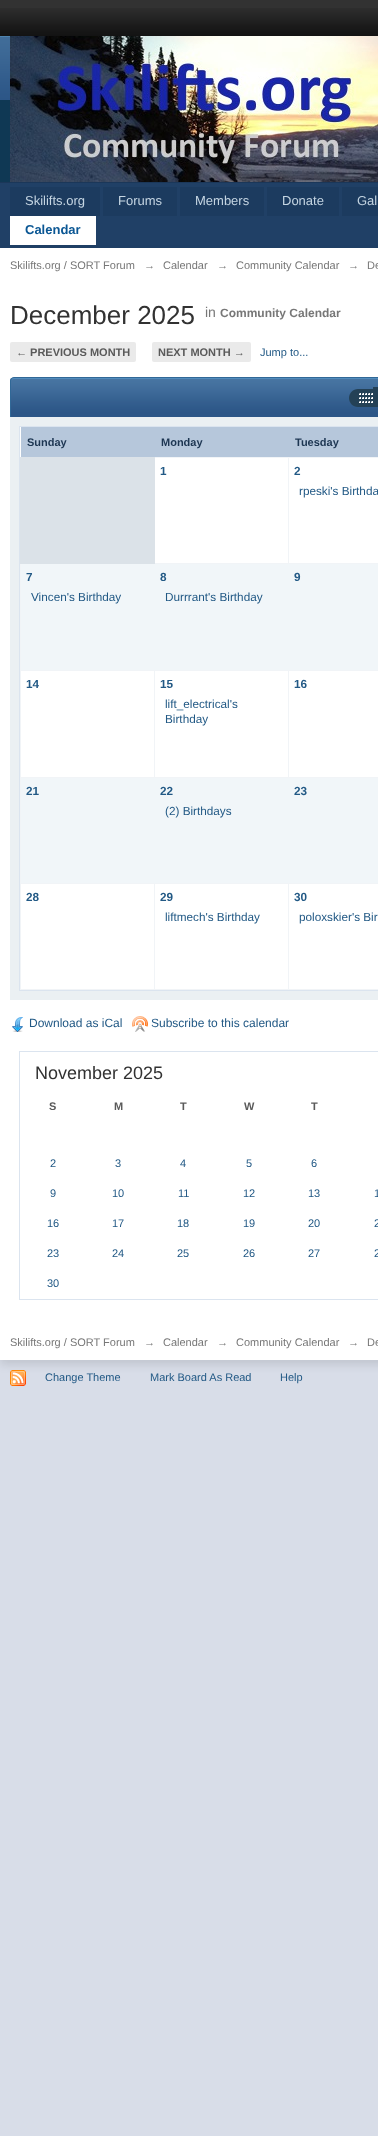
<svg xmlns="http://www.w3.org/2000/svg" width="378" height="2136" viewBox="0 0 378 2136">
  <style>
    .t1 { font: 13px Liberation Sans; fill: #c5d5e2; }
    .t2 { font: bold 13px Liberation Sans; fill: #0b5794; }
    .t3 { font: 11px Liberation Sans; fill: #777; }
    .t4 { font: 26px Liberation Sans; fill: #323232; }
    .t5 { font: 14px Liberation Sans; fill: #777; }
    .t6 { font: bold 12px Liberation Sans; fill: #777; }
    .t7 { font: bold 11px Liberation Sans; fill: #5a5a5a; }
    .t8 { font: 11px Liberation Sans; fill: #225985; }
    .t9 { font: bold 11px Liberation Sans; fill: #1d3652; }
    .t10 { font: bold 11.75px Liberation Sans; fill: #225985; }
    .t11 { font: 11.75px Liberation Sans; fill: #225985; }
    .t12 { font: 12px Liberation Sans; fill: #225985; }
    .t13 { font: 18px Liberation Sans; fill: #323232; }
  </style>
  <rect width="100%" height="100%" fill="#d8dde8"/>
  <rect x="0" y="0" width="378" height="8" fill="#323232"/>
  <image x="0" y="8" width="378" height="28" href="images/1.png"/>
  <rect x="0" y="100" width="10" height="82" fill="#0f3854"/>
  <image x="0" y="36" width="10" height="64" href="images/2.png"/>
  <rect x="0" y="182" width="378" height="1" fill="#1b3759"/>
  <image x="10" y="36" width="368" height="146" href="images/3.png"/>
  <rect x="0" y="183" width="378" height="65" fill="#204066"/>
  <rect x="10" y="187" width="90" height="29" fill="#1c3b5f"/>
  <text x="25" y="205" class="t1">Skilifts.org</text>
  <rect x="103" y="187" width="74" height="29" fill="#1c3b5f"/>
  <text x="118" y="205" class="t1">Forums</text>
  <rect x="180" y="187" width="84" height="29" fill="#1c3b5f"/>
  <text x="195" y="205" class="t1">Members</text>
  <rect x="267" y="187" width="72" height="29" fill="#1c3b5f"/>
  <text x="282" y="205" class="t1">Donate</text>
  <rect x="342" y="187" width="36" height="29" fill="#1c3b5f"/>
  <text x="357" y="205" class="t1">Gal</text>
  <rect x="0" y="253" width="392" height="1112" fill="#0000001a" filter="blur(4.5px)"/>
  <rect x="10" y="216" width="86" height="29" fill="#fff"/>
  <text x="25" y="234" class="t2">Calendar</text>
  <rect x="0" y="248" width="378" height="1112" fill="#fff"/>
  <text x="10" y="269" class="t3">Skilifts.org / SORT Forum</text>
  <text x="144" y="269" class="t3">→</text>
  <text x="163" y="269" class="t3">Calendar</text>
  <text x="217" y="269" class="t3">→</text>
  <text x="236" y="269" class="t3">Community Calendar</text>
  <text x="348" y="269" class="t3">→</text>
  <text x="367" y="269" class="t3">De</text>
  <text x="10" y="324" class="t4">December 2025</text>
  <text x="205" y="317" class="t5">in</text>
  <text x="220" y="317" class="t6">Community Calendar</text>
  <rect x="10" y="342" width="126" height="20" rx="2" fill="#eaeaea"/>
  <text x="16" y="356" class="t7">← PREVIOUS MONTH</text>
  <rect x="152" y="342" width="99" height="20" rx="2" fill="#eaeaea"/>
  <text x="158" y="356" class="t7">NEXT MONTH →</text>
  <text x="260" y="356" class="t8">Jump to...</text>
  <rect x="11" y="413" width="367" height="4" fill="#2c5687"/>
  <image x="10" y="378" width="368" height="35" href="images/4.png"/>
  <path d="M14 379H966C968 379 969 380 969 382C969 380 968 378 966 378H14C12 378 11 380 11 382C11 380 12 379 14 379Z" fill="#528cbc"/>
  <path d="M14 377H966C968 377 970 379 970 381V417H10V381C10 379 12 377 14 377ZM14 378H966C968 378 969 379 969 381V417H11V381C11 379 12 378 14 378Z" fill="#316897" fill-rule="evenodd"/>
  <path d="M358 389H373V407H358C353 407 349 403 349 398C349 393 353 389 358 389Z" fill="#244156"/>
  <rect x="373" y="387" width="5" height="20" fill="#244156"/>
  <image x="359" y="393" width="14" height="10" href="images/5.png"/>
  <rect x="10" y="417" width="368" height="583" fill="#ebf0f3"/>
  <rect x="20" y="427" width="358" height="562" fill="#fff"/>
  <rect x="19.5" y="426.5" width="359" height="564" fill="none" stroke="#dbe4ef"/>
  <rect x="21" y="427" width="357" height="30" fill="#b6c7db"/>
  <text x="27" y="446" class="t9">Sunday</text>
  <text x="161" y="446" class="t9">Monday</text>
  <text x="295" y="446" class="t9">Tuesday</text>
  <rect x="21" y="458" width="133" height="105" fill="#dbe2e8"/>
  <rect x="288" y="457" width="90" height="1" fill="#f1f4f7"/>
  <rect x="154" y="563" width="224" height="1" fill="#f1f4f7"/>
  <rect x="288" y="457" width="1" height="107" fill="#f1f4f7"/>
  <rect x="154" y="457" width="135" height="1" fill="#f1f4f7"/>
  <rect x="20" y="457" width="135" height="1" fill="#dbe2e8"/>
  <rect x="154" y="457" width="1" height="107" fill="#dbe2e8"/>
  <rect x="288" y="670" width="90" height="1" fill="#f1f4f7"/>
  <rect x="20" y="777" width="358" height="1" fill="#f1f4f7"/>
  <rect x="288" y="670" width="1" height="108" fill="#f1f4f7"/>
  <rect x="154" y="670" width="135" height="1" fill="#f1f4f7"/>
  <rect x="154" y="670" width="1" height="108" fill="#f1f4f7"/>
  <rect x="20" y="670" width="135" height="1" fill="#f1f4f7"/>
  <rect x="288" y="883" width="90" height="1" fill="#f1f4f7"/>
  <rect x="288" y="989" width="90" height="1" fill="#f1f4f7"/>
  <rect x="288" y="883" width="1" height="107" fill="#f1f4f7"/>
  <rect x="154" y="883" width="135" height="1" fill="#f1f4f7"/>
  <rect x="154" y="989" width="135" height="1" fill="#f1f4f7"/>
  <rect x="154" y="883" width="1" height="107" fill="#f1f4f7"/>
  <rect x="20" y="883" width="135" height="1" fill="#f1f4f7"/>
  <rect x="20" y="989" width="135" height="1" fill="#f1f4f7"/>
  <rect x="20" y="883" width="1" height="107" fill="#f1f4f7"/>
  <rect x="20" y="777" width="1" height="107" fill="#f1f4f7"/>
  <rect x="20" y="563" width="1" height="215" fill="#f1f4f7"/>
  <rect x="20" y="563" width="135" height="1" fill="#dbe2e8"/>
  <rect x="20" y="457" width="1" height="107" fill="#dbe2e8"/>
  <text x="160" y="475" class="t10">1</text>
  <text x="294" y="475" class="t10">2</text>
  <text x="299" y="495" class="t11">rpeski's Birthda</text>
  <rect x="21" y="564" width="357" height="106" fill="#f1f6f9"/>
  <text x="26" y="581" class="t10">7</text>
  <text x="31" y="601" class="t11">Vincen's Birthday</text>
  <text x="160" y="581" class="t10">8</text>
  <text x="165" y="601" class="t11">Durrrant's Birthday</text>
  <text x="294" y="581" class="t10">9</text>
  <text x="26" y="688" class="t10">14</text>
  <text x="160" y="688" class="t10">15</text>
  <text x="165" y="708" class="t11">lift_electrical's</text>
  <text x="165" y="723" class="t11">Birthday</text>
  <text x="294" y="688" class="t10">16</text>
  <rect x="21" y="778" width="357" height="105" fill="#f1f6f9"/>
  <text x="26" y="795" class="t10">21</text>
  <text x="160" y="795" class="t10">22</text>
  <text x="165" y="815" class="t11">(2) Birthdays</text>
  <text x="294" y="795" class="t10">23</text>
  <text x="26" y="901" class="t10">28</text>
  <text x="160" y="901" class="t10">29</text>
  <text x="165" y="921" class="t11">liftmech's Birthday</text>
  <text x="294" y="901" class="t10">30</text>
  <text x="299" y="921" class="t11">poloxskier's Bir</text>
  <image x="12" y="1017" width="11" height="15" href="images/6.png"/>
  <text x="29" y="1027" class="t12">Download as iCal</text>
  <image x="132" y="1016" width="16" height="16" href="images/7.png"/>
  <text x="151" y="1027" class="t12">Subscribe to this calendar</text>
  <rect x="19.5" y="1051.5" width="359" height="248" fill="none" stroke="#dbe4ef"/>
  <text x="35" y="1079" class="t13">November 2025</text>
  <text x="49" y="1110" class="t7">S</text>
  <text x="114" y="1110" class="t7">M</text>
  <text x="180" y="1110" class="t7">T</text>
  <text x="244" y="1110" class="t7">W</text>
  <text x="311" y="1110" class="t7">T</text>
  <text x="50" y="1167" class="t8">2</text>
  <text x="115" y="1167" class="t8">3</text>
  <text x="180" y="1167" class="t8">4</text>
  <text x="246" y="1167" class="t8">5</text>
  <text x="311" y="1167" class="t8">6</text>
  <text x="50" y="1197" class="t8">9</text>
  <text x="112" y="1197" class="t8">10</text>
  <text x="178" y="1197" class="t8">11</text>
  <text x="243" y="1197" class="t8">12</text>
  <text x="308" y="1197" class="t8">13</text>
  <text x="374" y="1197" class="t8">1</text>
  <text x="47" y="1227" class="t8">16</text>
  <text x="112" y="1227" class="t8">17</text>
  <text x="177" y="1227" class="t8">18</text>
  <text x="243" y="1227" class="t8">19</text>
  <text x="308" y="1227" class="t8">20</text>
  <text x="374" y="1227" class="t8">2</text>
  <text x="47" y="1257" class="t8">23</text>
  <text x="112" y="1257" class="t8">24</text>
  <text x="177" y="1257" class="t8">25</text>
  <text x="243" y="1257" class="t8">26</text>
  <text x="308" y="1257" class="t8">27</text>
  <text x="374" y="1257" class="t8">2</text>
  <text x="47" y="1287" class="t8">30</text>
  <text x="10" y="1346" class="t3">Skilifts.org / SORT Forum</text>
  <text x="144" y="1346" class="t3">→</text>
  <text x="163" y="1346" class="t3">Calendar</text>
  <text x="217" y="1346" class="t3">→</text>
  <text x="236" y="1346" class="t3">Community Calendar</text>
  <text x="348" y="1346" class="t3">→</text>
  <text x="367" y="1346" class="t3">De</text>
  <image x="10" y="1370" width="16" height="16" href="images/8.png"/>
  <text x="45" y="1381" class="t8">Change Theme</text>
  <text x="150" y="1381" class="t8">Mark Board As Read</text>
  <text x="280" y="1381" class="t8">Help</text>
</svg>
